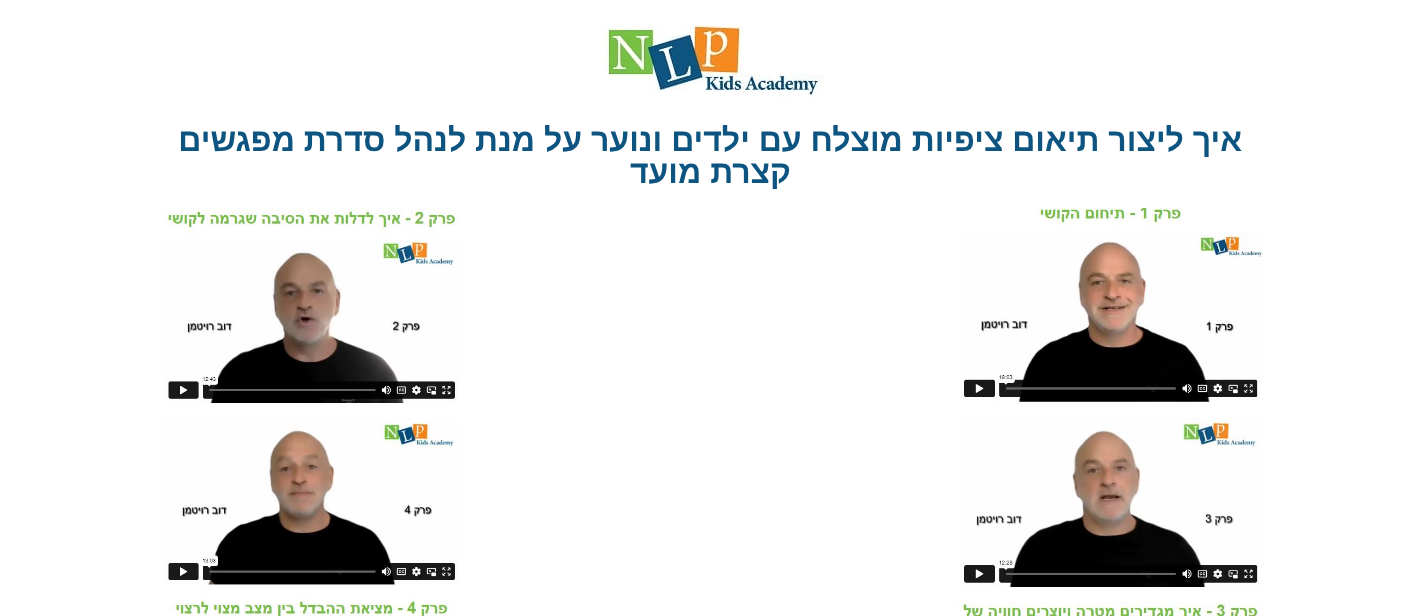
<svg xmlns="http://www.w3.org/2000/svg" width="1421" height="616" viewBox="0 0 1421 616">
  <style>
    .t1 { font: bold 32px Liberation Sans; direction: rtl; fill: #0d5580; }
  </style>
  <rect width="100%" height="100%" fill="#fff"/>
  <image x="601" y="24" width="224" height="80" href="images/1.png"/>
  <text x="1242" y="151" class="t1">איך ליצור תיאום ציפיות מוצלח עם ילדים ונוער על מנת לנהל סדרת מפגשים</text>
  <text x="791" y="183" class="t1">קצרת מועד</text>
  <image x="957" y="208" width="307" height="408" href="images/2.png"/>
  <image x="163" y="208" width="296" height="408" href="images/3.png"/>
</svg>
